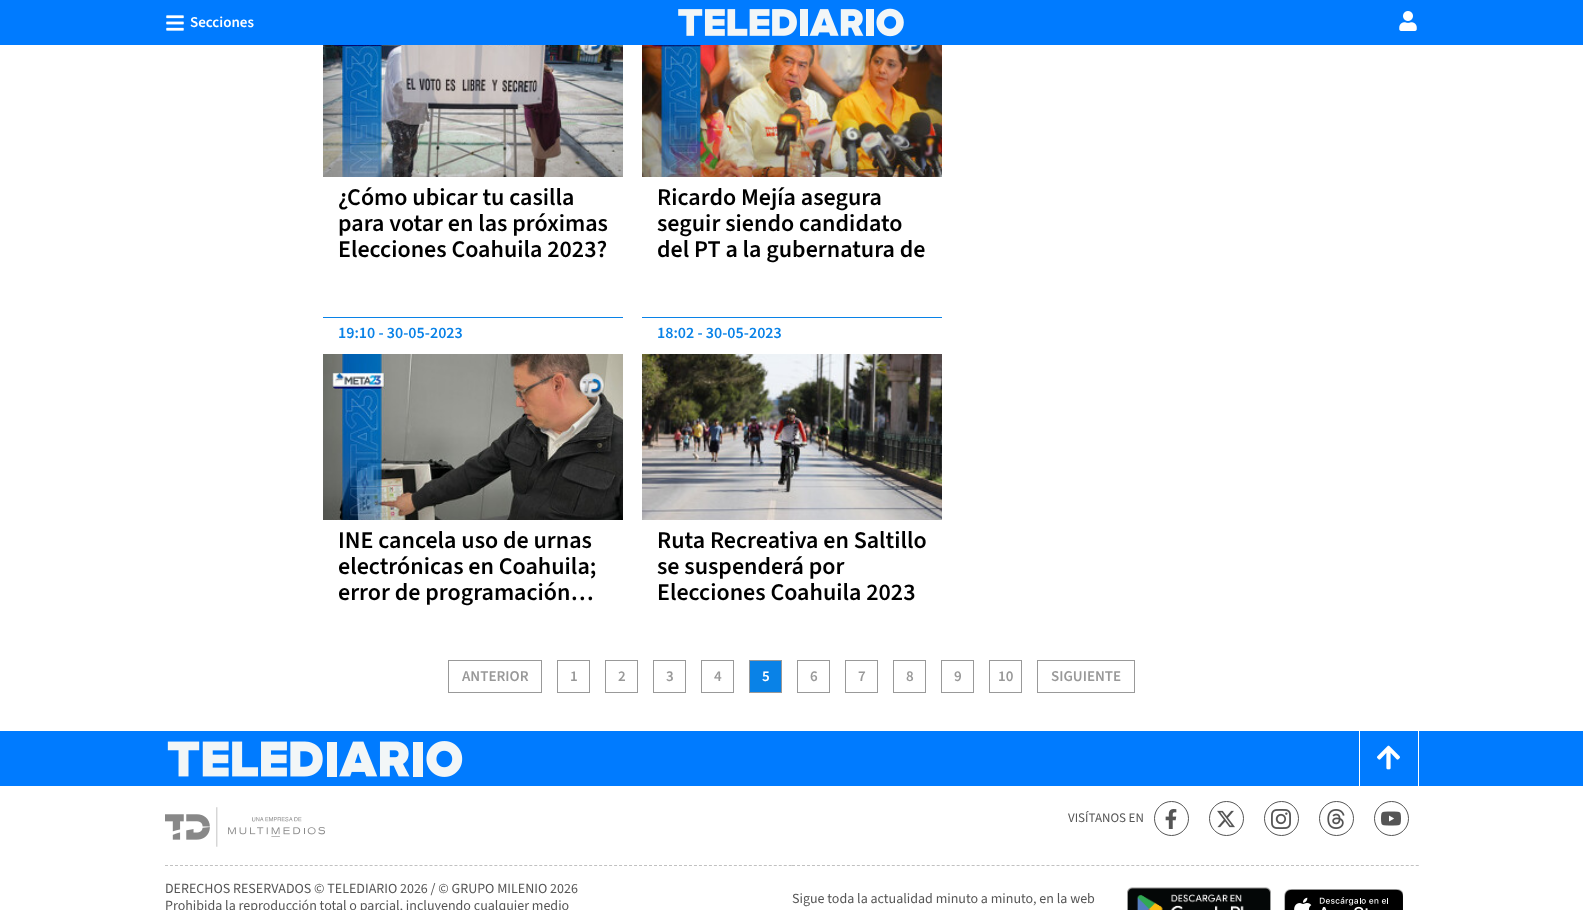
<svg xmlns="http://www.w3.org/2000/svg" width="1583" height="910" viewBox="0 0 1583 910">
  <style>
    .t1 { font: 600 15px 'Source Sans 3'; fill: #fff; }
    .t2 { font: 600 24px 'Source Sans 3'; fill: #000; }
    .t3 { font: 600 16px 'Source Sans 3'; fill: #0982e7; }
    .t4 { font: 600 15px 'Source Sans 3'; fill: #999; }
    .t5 { font: 13px 'Source Sans 3'; fill: #555; }
    .t6 { font: 14px 'Source Sans 3'; fill: #555; }
  </style>
  <rect width="100%" height="100%" fill="#fff"/>
  <rect x="0" y="0" width="1583" height="45" fill="#007bff"/>
  <image x="166" y="15" width="18" height="16" href="images/1.png"/>
  <text x="190" y="27" class="t1">Secciones</text>
  <image x="678" y="8" width="226" height="29" href="images/2.png"/>
  <image x="1399" y="11" width="18" height="20" href="images/3.png"/>
  <image x="323" y="45" width="300" height="132" href="images/4.png"/>
  <text x="338" y="205" class="t2">¿Cómo ubicar tu casilla</text>
  <text x="338" y="231" class="t2">para votar en las próximas</text>
  <text x="338" y="257" class="t2">Elecciones Coahuila 2023?</text>
  <image x="642" y="45" width="300" height="132" href="images/5.png"/>
  <text x="657" y="205" class="t2">Ricardo Mejía asegura</text>
  <text x="657" y="231" class="t2">seguir siendo candidato</text>
  <text x="657" y="257" class="t2">del PT a la gubernatura de</text>
  <rect x="323" y="317" width="300" height="1" fill="#0982e7"/>
  <text x="338" y="338" class="t3">19:10 - 30-05-2023</text>
  <image x="323" y="354" width="300" height="166" href="images/6.png"/>
  <text x="338" y="548" class="t2">INE cancela uso de urnas</text>
  <text x="338" y="574" class="t2">electrónicas en Coahuila;</text>
  <text x="338" y="600" class="t2">error de programación…</text>
  <rect x="642" y="317" width="300" height="1" fill="#0982e7"/>
  <text x="657" y="338" class="t3">18:02 - 30-05-2023</text>
  <image x="642" y="354" width="300" height="166" href="images/7.png"/>
  <text x="657" y="548" class="t2">Ruta Recreativa en Saltillo</text>
  <text x="657" y="574" class="t2">se suspenderá por</text>
  <text x="657" y="600" class="t2">Elecciones Coahuila 2023</text>
  <rect x="448.5" y="660.5" width="93" height="32" fill="none" stroke="#999"/>
  <text x="462" y="681" class="t4">ANTERIOR</text>
  <rect x="557.5" y="660.5" width="32" height="32" fill="none" stroke="#999"/>
  <text x="570" y="681" class="t4">1</text>
  <rect x="605.5" y="660.5" width="32" height="32" fill="none" stroke="#999"/>
  <text x="618" y="681" class="t4">2</text>
  <rect x="653.5" y="660.5" width="32" height="32" fill="none" stroke="#999"/>
  <text x="666" y="681" class="t4">3</text>
  <rect x="701.5" y="660.5" width="32" height="32" fill="none" stroke="#999"/>
  <text x="714" y="681" class="t4">4</text>
  <rect x="749.5" y="660.5" width="32" height="32" fill="#0982e7" stroke="#999"/>
  <text x="762" y="681" class="t1">5</text>
  <rect x="797.5" y="660.5" width="32" height="32" fill="none" stroke="#999"/>
  <text x="810" y="681" class="t4">6</text>
  <rect x="845.5" y="660.5" width="32" height="32" fill="none" stroke="#999"/>
  <text x="858" y="681" class="t4">7</text>
  <rect x="893.5" y="660.5" width="32" height="32" fill="none" stroke="#999"/>
  <text x="906" y="681" class="t4">8</text>
  <rect x="941.5" y="660.5" width="32" height="32" fill="none" stroke="#999"/>
  <text x="954" y="681" class="t4">9</text>
  <rect x="989.5" y="660.5" width="32" height="32" fill="none" stroke="#999"/>
  <text x="998" y="681" class="t4">10</text>
  <rect x="1037.5" y="660.5" width="97" height="32" fill="none" stroke="#999"/>
  <text x="1051" y="681" class="t4">SIGUIENTE</text>
  <rect x="0" y="731" width="1583" height="55" fill="#007bff"/>
  <image x="167" y="741" width="296" height="36" href="images/8.png"/>
  <rect x="1418" y="731" width="1" height="55" fill="#fff"/>
  <rect x="1359" y="731" width="1" height="55" fill="#fff"/>
  <image x="1377" y="745" width="23" height="25" href="images/9.png"/>
  <image x="165" y="807" width="160" height="40" href="images/10.png"/>
  <text x="1068" y="822" class="t5">VISÍTANOS EN</text>
  <circle cx="1171.5" cy="818.5" r="17" fill="none" stroke="#555"/>
  <image x="1165" y="809" width="12" height="20" href="images/11.png"/>
  <circle cx="1226.5" cy="818.5" r="17" fill="none" stroke="#555"/>
  <image x="1217" y="810" width="18" height="18" href="images/12.png"/>
  <circle cx="1281.5" cy="818.5" r="17" fill="none" stroke="#555"/>
  <image x="1271" y="809" width="20" height="20" href="images/13.png"/>
  <circle cx="1336.5" cy="818.5" r="17" fill="none" stroke="#555"/>
  <image x="1327" y="809" width="18" height="20" href="images/14.png"/>
  <circle cx="1391.5" cy="818.5" r="17" fill="none" stroke="#555"/>
  <image x="1381" y="811" width="20" height="15" href="images/15.png"/>
  <path d="M165 865.5H792" fill="none" stroke="#c1c1c1" stroke-dasharray="3 1.99"/>
  <text x="165" y="893" class="t6">DERECHOS RESERVADOS © TELEDIARIO 2026 / © GRUPO MILENIO 2026</text>
  <text x="165" y="910" class="t6">Prohibida la reproducción total o parcial, incluyendo cualquier medio</text>
  <path d="M792 865.5H1419" fill="none" stroke="#c1c1c1" stroke-dasharray="3 1.99"/>
  <text x="792" y="903" class="t6">Sigue toda la actualidad minuto a minuto, en la web</text>
  <image x="1127" y="887" width="144" height="23" href="images/16.png"/>
  <image x="1284" y="889" width="119" height="21" href="images/17.png"/>
</svg>
